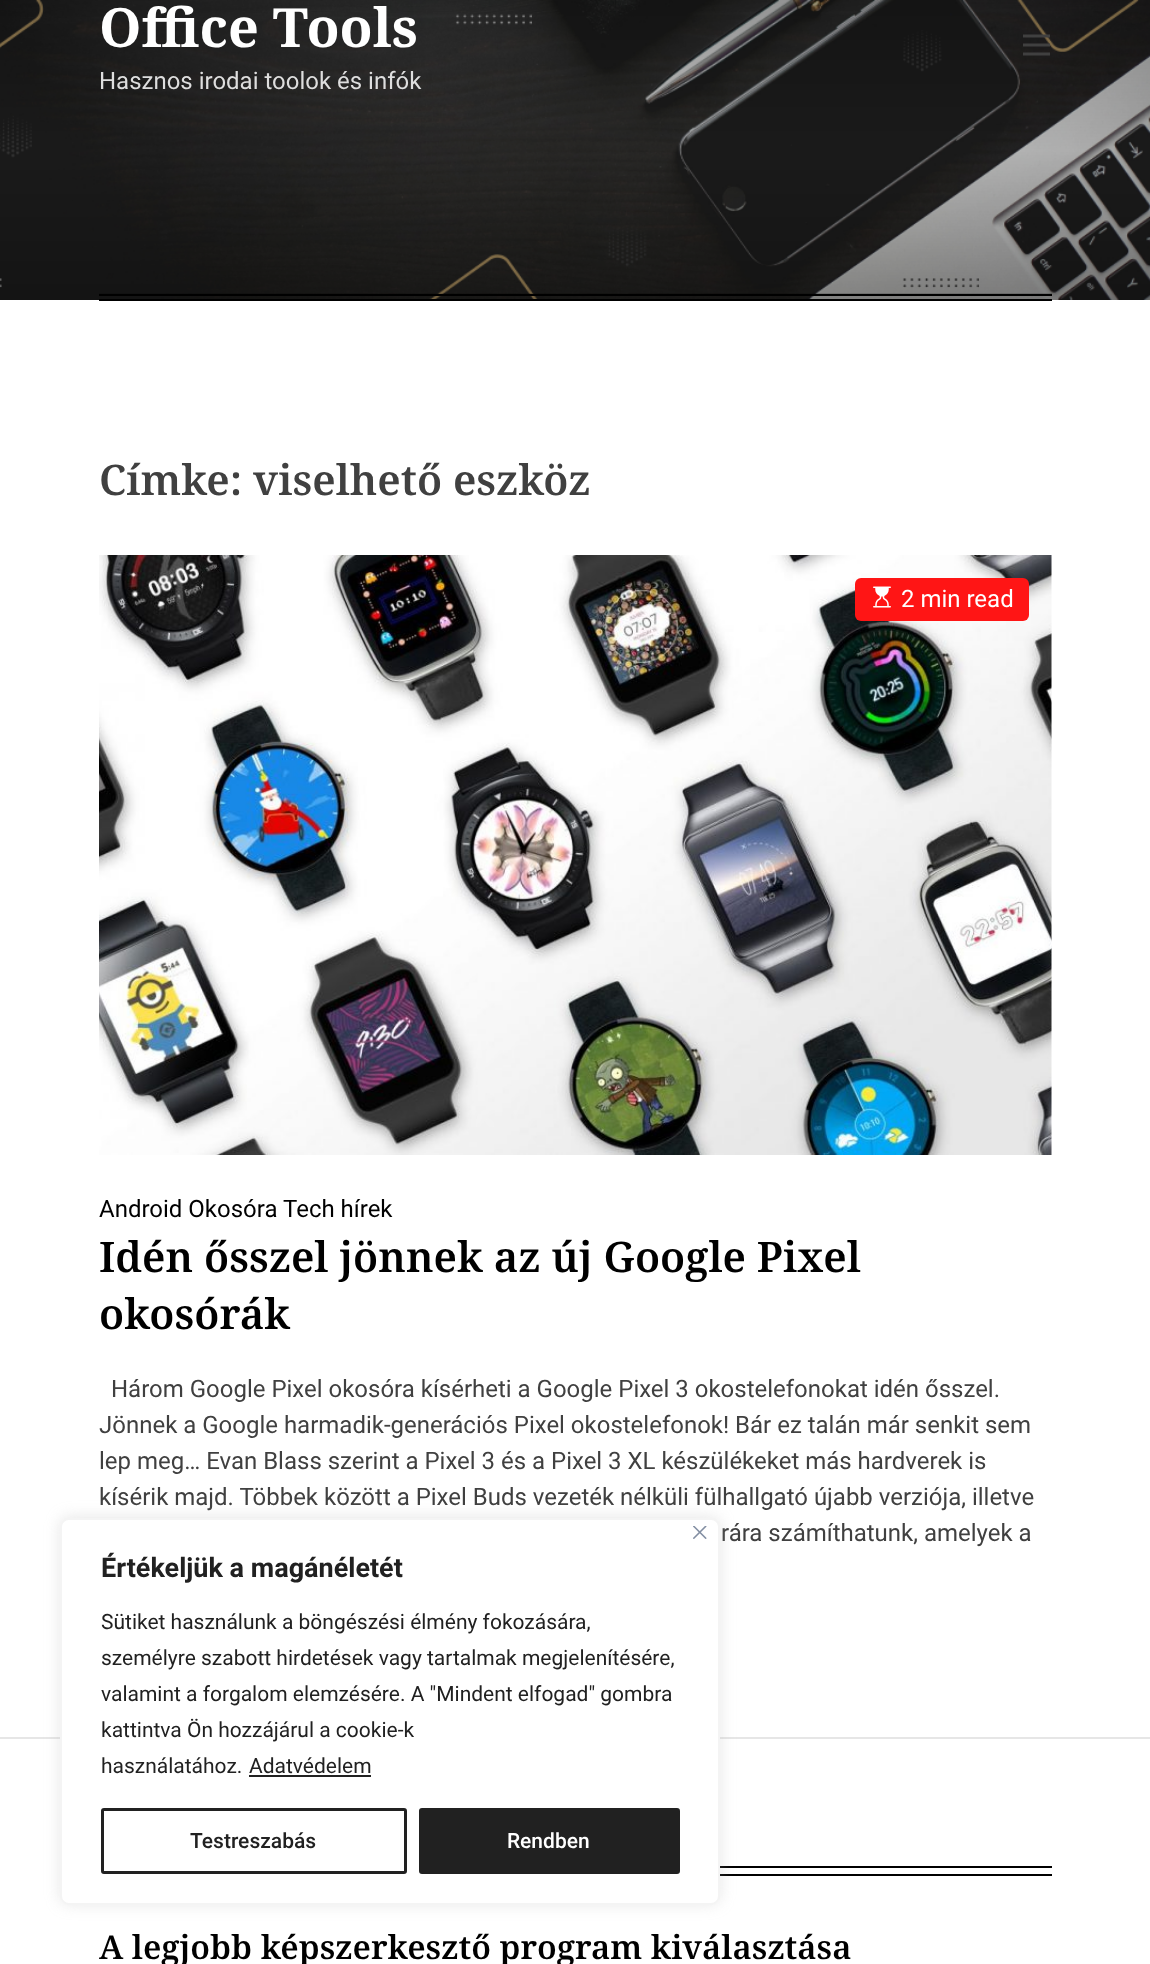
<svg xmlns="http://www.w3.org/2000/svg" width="1150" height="1964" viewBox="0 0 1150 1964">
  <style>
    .t1 { font: bold 54px Noto Serif; fill: #fff; }
    .t2 { font: 24px Roboto; fill: #dedede; }
    .t3 { font: 600 42px Noto Serif; fill: #404040; }
    .t4 { font: 24px Roboto; fill: #fff; }
    .t5 { font: 24px Roboto; fill: #000; }
    .t6 { font: 600 42px Noto Serif; fill: #000; }
    .t7 { font: 24px Roboto; fill: #404040; }
    .t8 { font: 600 33px Noto Serif; fill: #000; }
    .t9 { font: bold 27px Roboto; fill: #212121; }
    .t10 { font: 21px Roboto; fill: #212121; }
    .t11 { font: 500 21px Roboto; fill: #212121; }
    .t12 { font: 500 21px Roboto; fill: #fff; }
  </style>
  <rect width="100%" height="100%" fill="#fff"/>
  <image x="0" y="0" width="1150" height="300" href="images/1.png"/>
  <text x="99" y="47" class="t1">Office Tools</text>
  <text x="99" y="89" class="t2">Hasznos irodai toolok és infók</text>
  <image x="1023" y="34" width="27" height="22" href="images/2.png"/>
  <rect x="99" y="293" width="953" height="1" fill="#00000026"/>
  <rect x="99" y="294" width="953" height="2" fill="#000"/>
  <rect x="99" y="299" width="953" height="2" fill="#000"/>
  <rect x="0" y="1737" width="1150" height="2" fill="#e6e6e6"/>
  <text x="99" y="495" class="t3">Címke: viselhető eszköz</text>
  <image x="99" y="555" width="953" height="600" href="images/3.png"/>
  <rect x="855" y="578" width="174" height="43" rx="6" fill="#ff1515"/>
  <image x="873" y="586" width="18" height="22" href="images/4.png"/>
  <text x="901" y="607" class="t4">2 min read</text>
  <text x="99" y="1217" class="t5">Android Okosóra</text>
  <text x="283" y="1217" class="t5">Tech hírek</text>
  <text x="99" y="1272" class="t6">Idén ősszel jönnek az új Google Pixel</text>
  <text x="99" y="1329" class="t6">okosórák</text>
  <text x="111" y="1397" class="t7">Három Google Pixel okosóra kísérheti a Google Pixel 3 okostelefonokat idén ősszel.</text>
  <text x="99" y="1433" class="t7">Jönnek a Google harmadik-generációs Pixel okostelefonok! Bár ez talán már senkit sem</text>
  <text x="99" y="1469" class="t7">lep meg… Evan Blass szerint a Pixel 3 és a Pixel 3 XL készülékeket más hardverek is</text>
  <text x="99" y="1505" class="t7">kísérik majd. Többek között a Pixel Buds vezeték nélküli fülhallgató újabb verziója, illetve</text>
  <text x="721" y="1541" class="t7">rára számíthatunk, amelyek a</text>
  <rect x="720" y="1874" width="332" height="2" fill="#000"/>
  <rect x="720" y="1866" width="332" height="2" fill="#000"/>
  <text x="99" y="1959" class="t8">A legjobb képszerkesztő program kiválasztása</text>
  <rect x="60" y="1517" width="660" height="387" rx="9" fill="#acabab4d" filter="blur(7.5px)"/>
  <rect x="61" y="1519" width="658" height="385" rx="8" fill="#fff" stroke="#f4f4f4" stroke-width="2"/>
  <image x="693" y="1526" width="14" height="13" href="images/5.png"/>
  <text x="101" y="1577" class="t9">Értékeljük a magánéletét</text>
  <text x="101" y="1629" class="t10">Sütiket használunk a böngészési élmény fokozására,</text>
  <text x="101" y="1665" class="t10">személyre szabott hirdetések vagy tartalmak megjelenítésére,</text>
  <text x="101" y="1701" class="t10">valamint a forgalom elemzésére. A "Mindent elfogad" gombra</text>
  <text x="101" y="1737" class="t10">kattintva Ön hozzájárul a cookie-k</text>
  <text x="101" y="1773" class="t10">használatához.</text>
  <text x="249" y="1773" class="t10">Adatvédelem</text>
  <rect x="249" y="1775" width="122" height="2" fill="#212121"/>
  <rect x="102.5" y="1809.5" width="303" height="63" rx="1.5" fill="none" stroke="#212121" stroke-width="3"/>
  <text x="190" y="1848" class="t11">Testreszabás</text>
  <rect x="420.5" y="1809.5" width="258" height="63" rx="1.5" fill="#212121" stroke="#212121" stroke-width="3"/>
  <text x="507" y="1848" class="t12">Rendben</text>
</svg>
